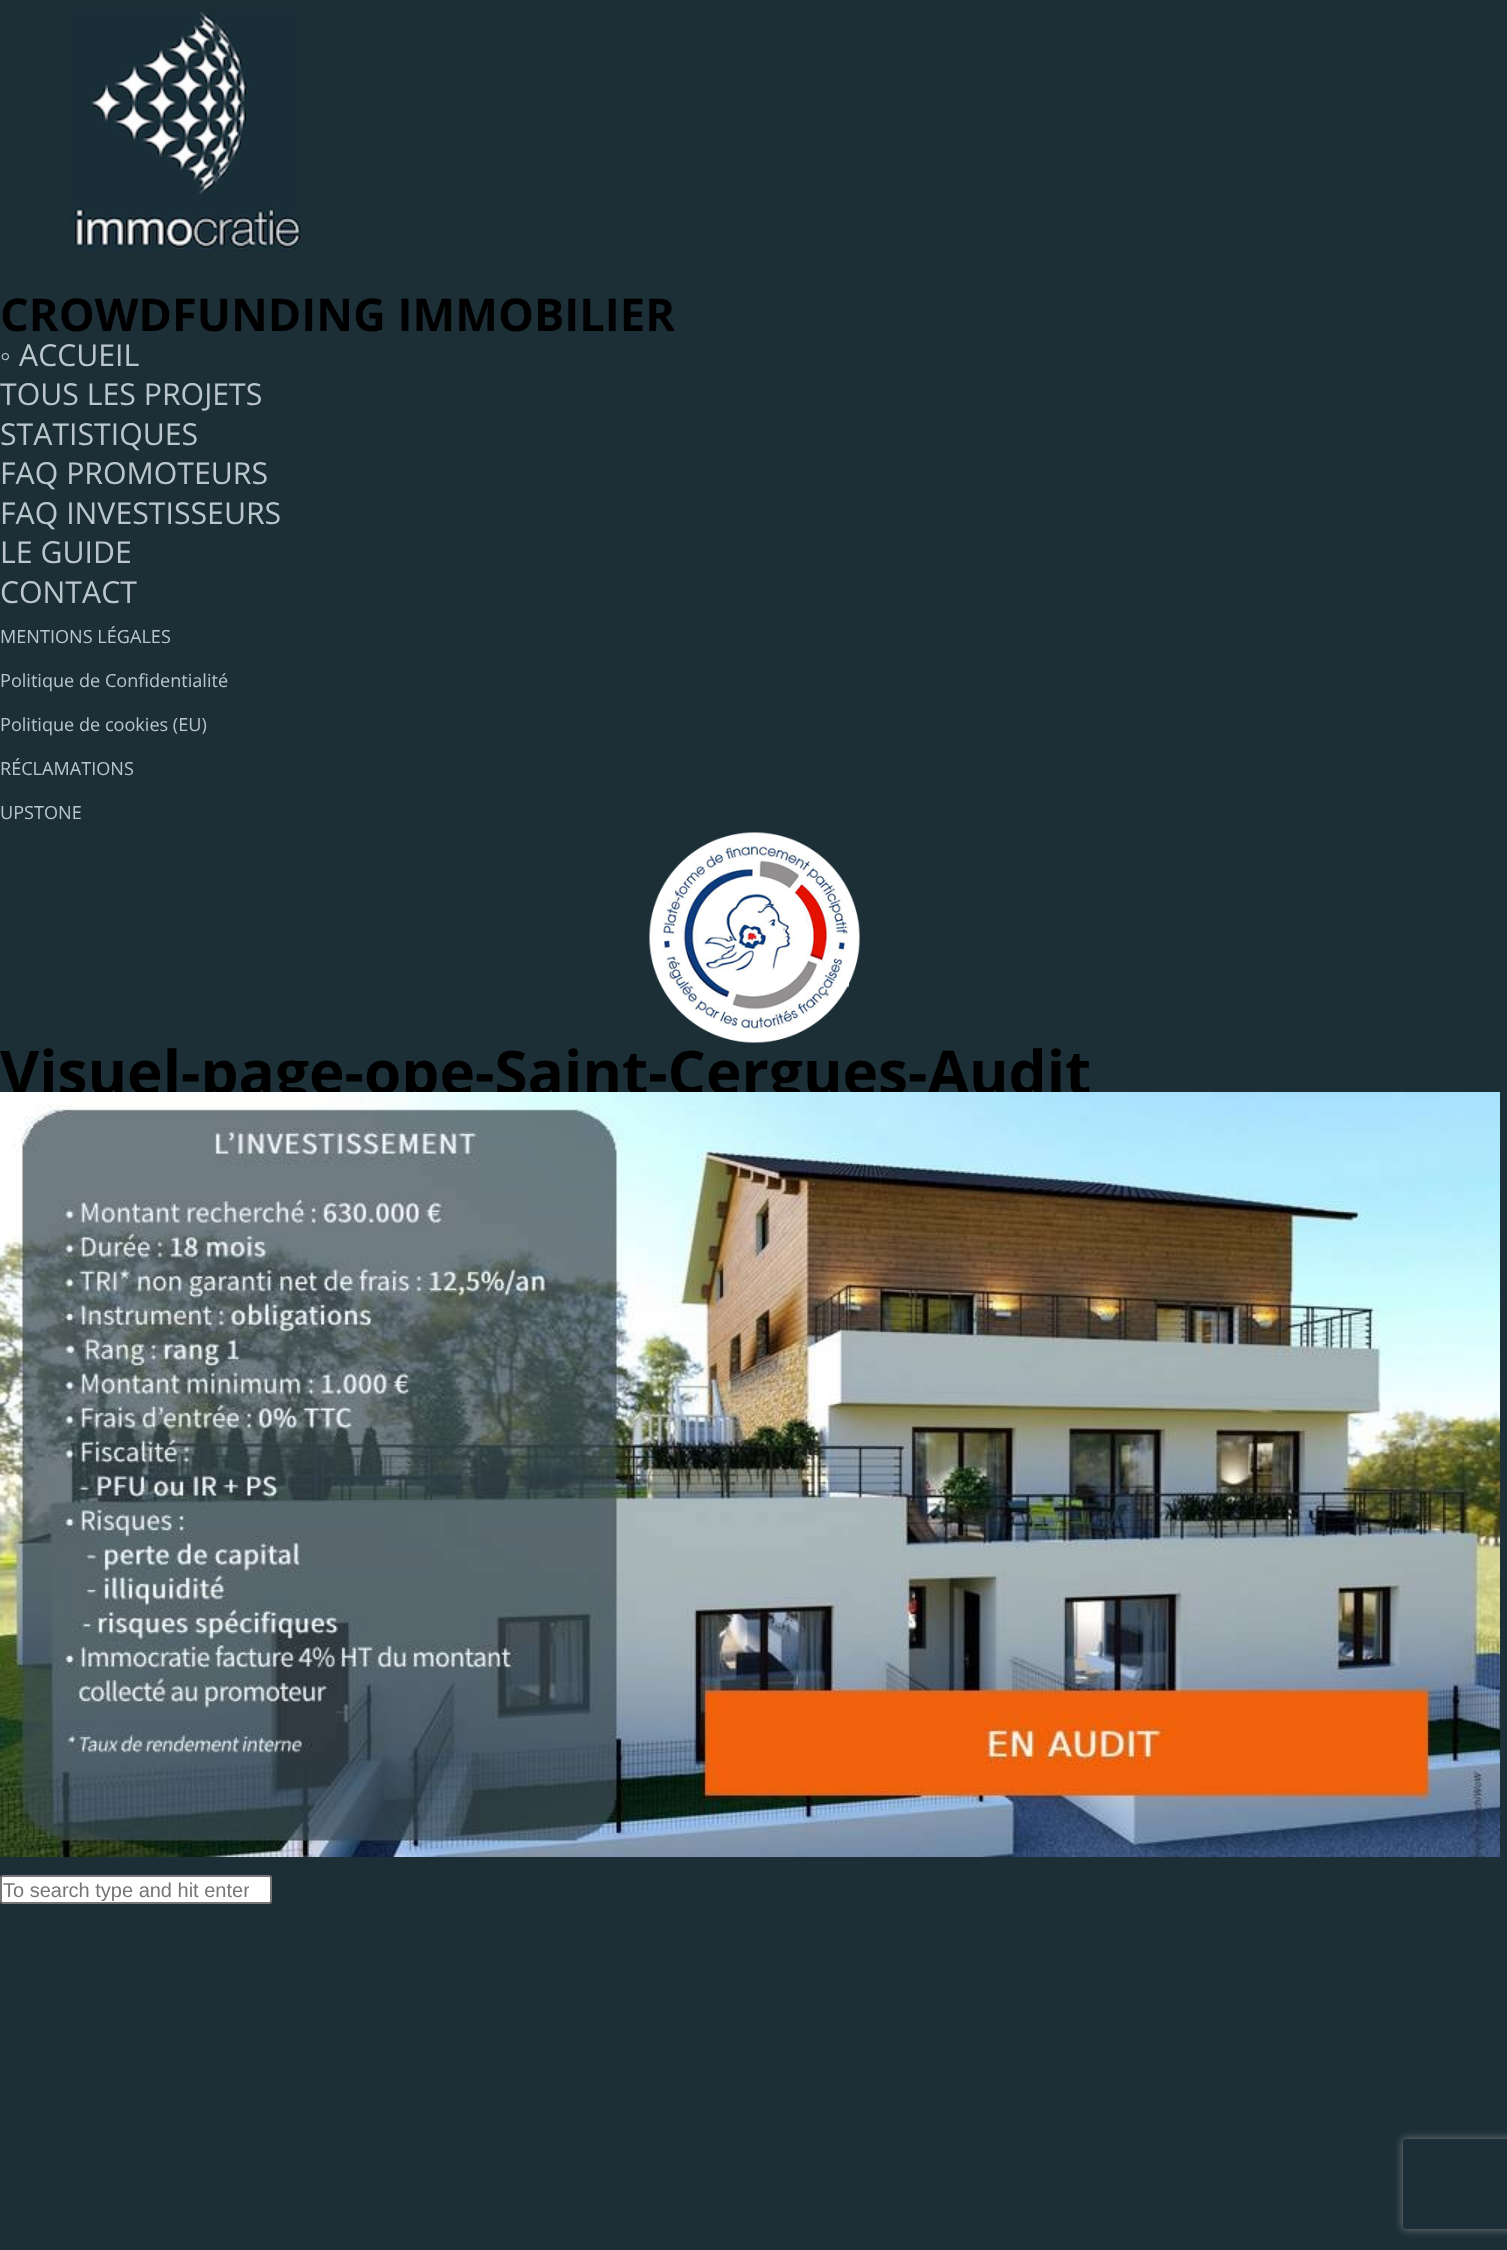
<svg xmlns="http://www.w3.org/2000/svg" width="1507" height="2250" viewBox="0 0 1507 2250">
  <style>
    .t1 { font: bold 45.25px Open Sans; fill: #000; }
    .t2 { font: 30.25px Liberation Sans; fill: #bac6cc; }
    .t3 { font: 30.25px Open Sans; fill: #bac6cc; }
    .t4 { font: 18.1px Open Sans; fill: #bac6cc; }
    .t5 { font: bold 60.25px Open Sans; fill: #000; }
    .t6 { font: 20px Liberation Sans; fill: #757575; }
  </style>
  <defs>
    <clipPath id="clip1"><rect x="3" y="1878" width="246" height="23"/></clipPath>
    <clipPath id="clip2"><path d="M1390 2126H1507V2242H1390ZM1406 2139H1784C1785.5 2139 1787 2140.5 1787 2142V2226C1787 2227.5 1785.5 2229 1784 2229H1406C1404.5 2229 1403 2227.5 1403 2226V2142C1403 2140.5 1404.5 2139 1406 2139Z" clip-rule="evenodd"/></clipPath>
  </defs>
  <rect width="100%" height="100%" fill="#1c2f37"/>
  <image x="69" y="9" width="233" height="242" href="images/1.png"/>
  <text x="0" y="331" class="t1">CROWDFUNDING IMMOBILIER</text>
  <text x="0" y="366" class="t2">◦</text>
  <text x="19" y="366" class="t3">ACCUEIL</text>
  <text x="0" y="405" class="t3">TOUS LES PROJETS</text>
  <text x="0" y="445" class="t3">STATISTIQUES</text>
  <text x="0" y="484" class="t3">FAQ PROMOTEURS</text>
  <text x="0" y="524" class="t3">FAQ INVESTISSEURS</text>
  <text x="0" y="563" class="t3">LE GUIDE</text>
  <text x="0" y="603" class="t3">CONTACT</text>
  <text x="0" y="643" class="t4">MENTIONS LÉGALES</text>
  <text x="0" y="687" class="t4">Politique de Confidentialité</text>
  <text x="0" y="731" class="t4">Politique de cookies (EU)</text>
  <text x="0" y="775" class="t4">RÉCLAMATIONS</text>
  <text x="0" y="819" class="t4">UPSTONE</text>
  <image x="649" y="832" width="211" height="211" href="images/2.png"/>
  <text x="0" y="1094" class="t5">Visuel-page-ope-Saint-Cergues-Audit</text>
  <image x="0" y="1092" width="1500" height="765" href="images/3.png"/>
  <rect x="1" y="1876" width="270" height="27" rx="2" fill="#fff" stroke="#767676" stroke-width="2"/>
  <g clip-path="url(#clip1)">
    <text x="3" y="1897" class="t6">To search type and hit enter</text>
  </g>
  <g clip-path="url(#clip2)">
    <rect x="1403" y="2139" width="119" height="90" rx="3" fill="#808080" filter="blur(4px)"/>
  </g>
</svg>
